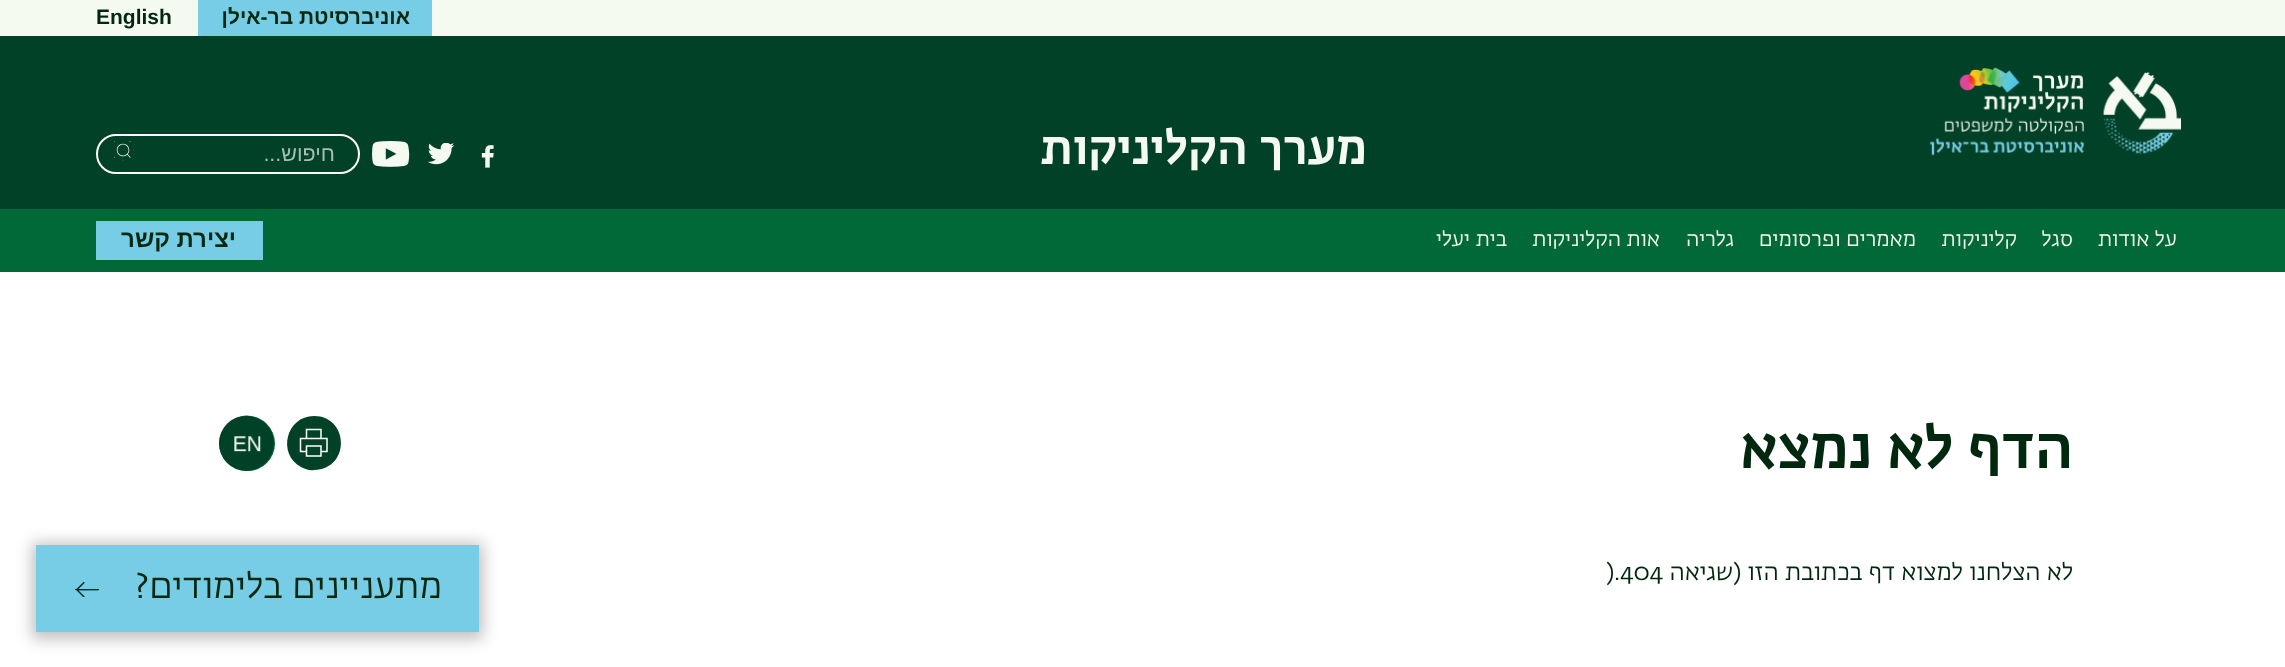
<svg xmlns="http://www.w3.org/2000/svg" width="2285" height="667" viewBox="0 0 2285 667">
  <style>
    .t1 { font: bold 21px Liberation Sans; direction: rtl; fill: #00280f; }
    .t2 { font: bold 21px Liberation Sans; fill: #00280f; }
    .t3 { font: 500 48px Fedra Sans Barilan; direction: rtl; fill: #f5faf0; }
    .t4 { font: 21.5px Liberation Sans; direction: rtl; fill: #a8beb6; }
    .t5 { font: 21px Fedra Sans Barilan; direction: rtl; fill: #f5faf0; }
    .t6 { font: bold 24px Liberation Sans; direction: rtl; fill: #00280f; }
    .t7 { font: 500 60px Fedra Sans Barilan; direction: rtl; fill: #00280f; }
    .t8 { font: 24px Fedra Sans Barilan; direction: rtl; fill: #00280f; }
    .t9 { font: 24px Fedra Sans Barilan; fill: #00280f; }
    .t10 { font: 36px Fedra Sans Barilan; direction: rtl; fill: #00280f; }
  </style>
  <rect width="100%" height="100%" fill="#fff"/>
  <rect x="0" y="0" width="2285" height="36" fill="#f5faf0"/>
  <rect x="198" y="0" width="234" height="36" fill="#78cde6"/>
  <text x="410" y="24" class="t1">אוניברסיטת בר-אילן</text>
  <text x="96" y="24" class="t2">English</text>
  <rect x="0" y="36" width="2285" height="173" fill="#004128"/>
  <image x="1929" y="67" width="252" height="89" href="images/1.png"/>
  <text x="1367" y="164" class="t3">מערך הקליניקות</text>
  <image x="481" y="145" width="13" height="23" href="images/2.png"/>
  <image x="428" y="143" width="27" height="22" href="images/3.png"/>
  <image x="372" y="141" width="38" height="26" href="images/4.png"/>
  <rect x="97" y="135" width="262" height="38" rx="19" fill="none" stroke="#fff" stroke-width="2"/>
  <text x="335" y="161" class="t4">חיפוש...</text>
  <image x="114" y="141" width="20" height="20" href="images/5.png"/>
  <rect x="0" y="209" width="2285" height="63" fill="#006937"/>
  <text x="2177" y="246" class="t5">על אודות</text>
  <text x="2073" y="246" class="t5">סגל</text>
  <text x="2017" y="246" class="t5">קליניקות</text>
  <text x="1916" y="246" class="t5">מאמרים ופרסומים</text>
  <text x="1734" y="246" class="t5">גלריה</text>
  <text x="1660" y="246" class="t5">אות הקליניקות</text>
  <text x="1507" y="246" class="t5">בית יעלי</text>
  <rect x="96" y="221" width="167" height="39" fill="#78cde6"/>
  <text x="236" y="247" class="t6">יצירת קשר</text>
  <text x="2073" y="468" class="t7">הדף לא נמצא</text>
  <path d="M314 416C349 416 351 469 314 470C310 471 305 469 301 467C277 454 286 416 314 416Z" fill="#004128"/>
  <path d="M321 446V456H306.5V446ZM321 429.5V438.5H306.5V429.5ZM306.5 451.5H300.5V438.5H327V451.5H321" fill="none" stroke="#fff" stroke-width="1.5" stroke-linecap="square"/>
  <rect x="219" y="416" width="56" height="55" rx="27.5" fill="#006937"/>
  <image x="218" y="415" width="56" height="56" href="images/6.png"/>
  <text x="2073" y="580" class="t8">לא הצלחנו למצוא דף בכתובת הזו (שגיאה</text>
  <text x="1606" y="580" class="t9">).404</text>
  <rect x="32" y="543" width="451" height="96" fill="#00000040" filter="blur(7.5px)"/>
  <rect x="36" y="545" width="443" height="87" fill="#78cde6"/>
  <text x="442" y="598" class="t10">מתעניינים בלימודים?</text>
  <rect x="75" y="589" width="24" height="1" fill="#00280f"/>
  <image x="76" y="581" width="23" height="16" href="images/7.png"/>
</svg>
